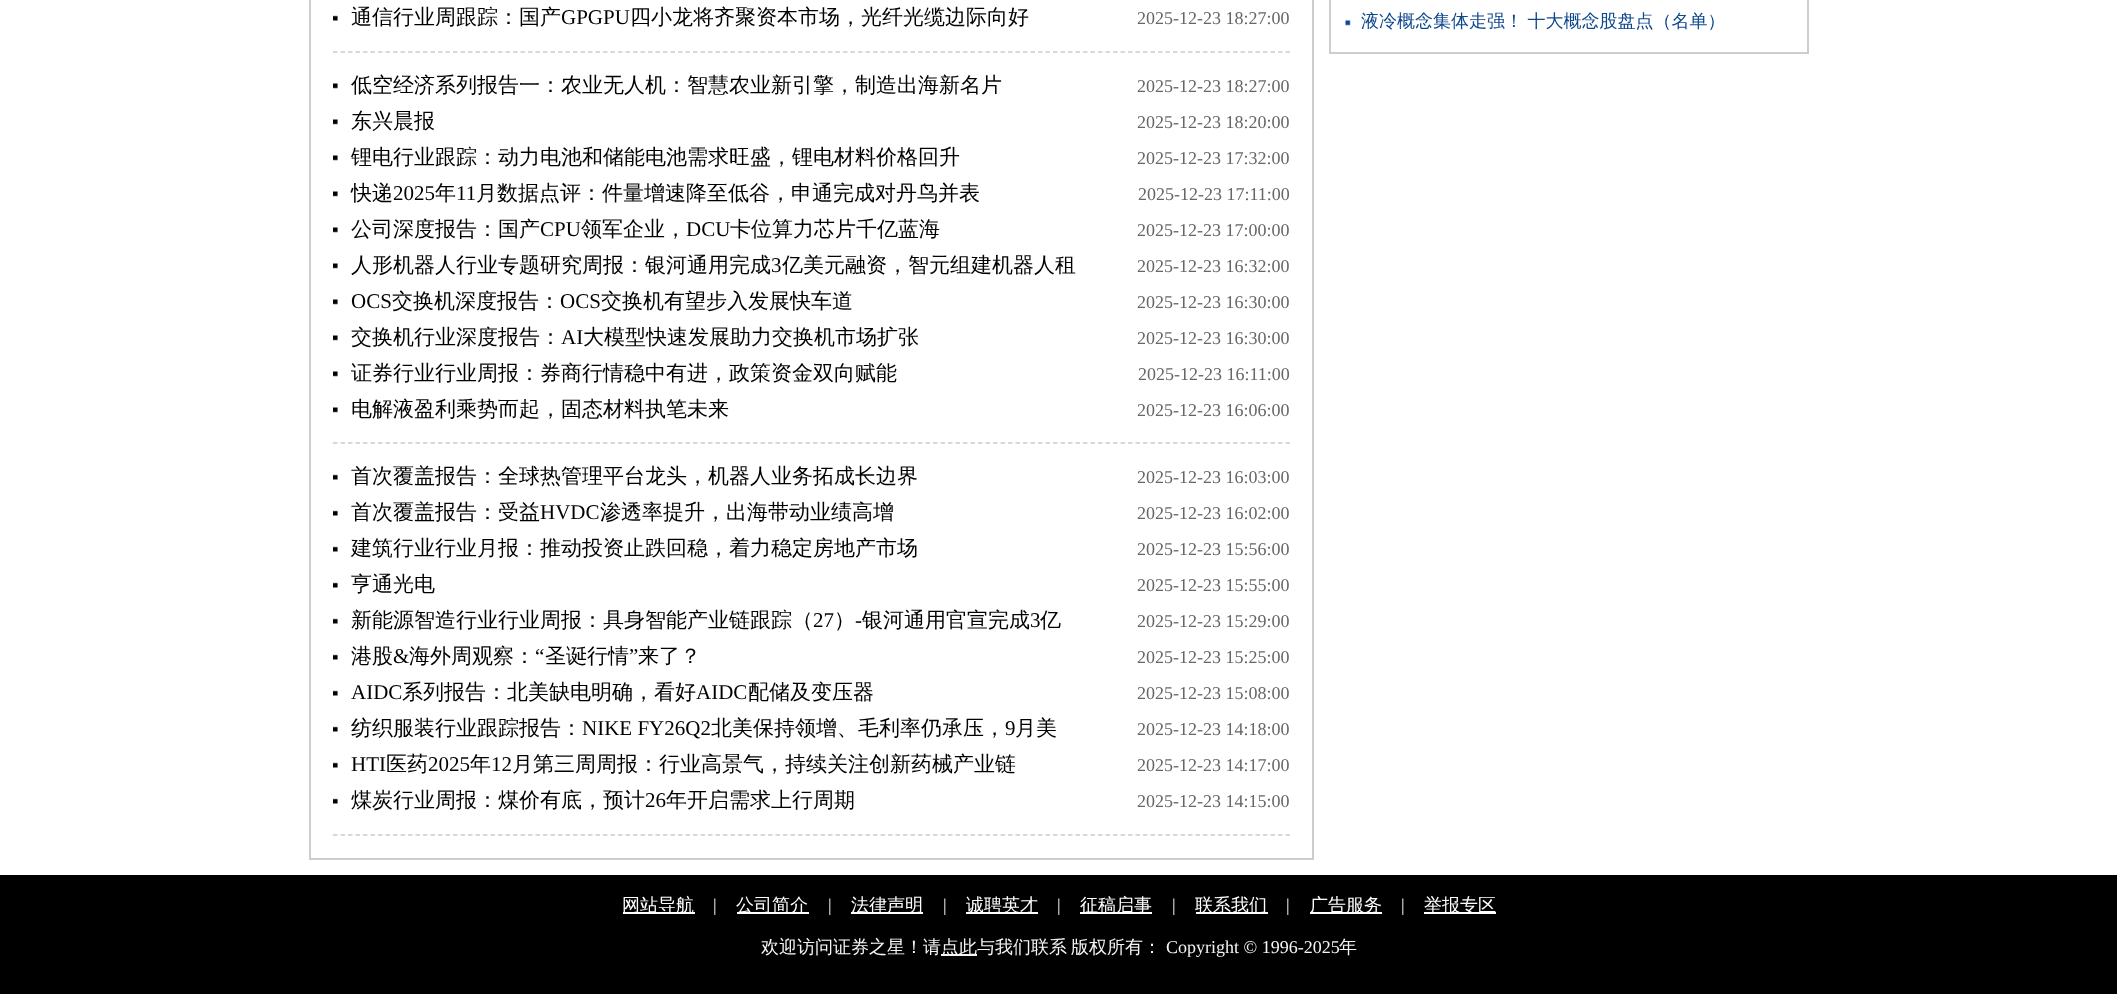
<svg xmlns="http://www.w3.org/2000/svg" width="2117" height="994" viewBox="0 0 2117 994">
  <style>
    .t1 { font: 500 21px WenQuanYi Zen Hei; fill: #000; }
    .t2 { font: 21px Liberation Serif; fill: #000; }
    .t3 { font: 18px Liberation Serif; fill: #666; }
    .t4 { font: 500 18px WenQuanYi Zen Hei; fill: #0e478c; }
    .t5 { font: 500 18px WenQuanYi Zen Hei; fill: #fff; }
    .t6 { font: 18px Liberation Serif; fill: #f5f5f5; }
    .t7 { font: 500 18px WenQuanYi Zen Hei; fill: #f5f5f5; }
  </style>
  <rect width="100%" height="100%" fill="#fff"/>
  <rect x="310" y="-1" width="1003" height="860" fill="none" stroke="#cdcdcd" stroke-width="2"/>
  <path d="M333 835H1290" fill="none" stroke="#ccc" stroke-width="1.5" stroke-dasharray="4.5 3"/>
  <image x="333" y="15" width="5" height="6" href="images/1.png"/>
  <text x="351" y="24" class="t1">通信行业周跟踪：国产</text>
  <text x="561" y="24" class="t2">GPGPU</text>
  <text x="630" y="24" class="t1">四小龙将齐聚资本市场，光纤光缆边际向好</text>
  <text x="1137" y="24" class="t3">2025-12-23 18:27:00</text>
  <path d="M333 52H1290" fill="none" stroke="#ccc" stroke-width="1.5" stroke-dasharray="4.5 3"/>
  <image x="333" y="83" width="5" height="6" href="images/2.png"/>
  <text x="351" y="92" class="t1">低空经济系列报告一：农业无人机：智慧农业新引擎，制造出海新名片</text>
  <text x="1137" y="92" class="t3">2025-12-23 18:27:00</text>
  <image x="333" y="119" width="5" height="6" href="images/2.png"/>
  <text x="351" y="128" class="t1">东兴晨报</text>
  <text x="1137" y="128" class="t3">2025-12-23 18:20:00</text>
  <image x="333" y="155" width="5" height="6" href="images/2.png"/>
  <text x="351" y="164" class="t1">锂电行业跟踪：动力电池和储能电池需求旺盛，锂电材料价格回升</text>
  <text x="1137" y="164" class="t3">2025-12-23 17:32:00</text>
  <image x="333" y="191" width="5" height="6" href="images/2.png"/>
  <text x="351" y="200" class="t1">快递</text>
  <text x="393" y="200" class="t2">2025</text>
  <text x="435" y="200" class="t1">年</text>
  <text x="456" y="200" class="t2">11</text>
  <text x="476" y="200" class="t1">月数据点评：件量增速降至低谷，申通完成对丹鸟并表</text>
  <text x="1138" y="200" class="t3">2025-12-23 17:11:00</text>
  <image x="333" y="227" width="5" height="6" href="images/2.png"/>
  <text x="351" y="236" class="t1">公司深度报告：国产</text>
  <text x="540" y="236" class="t2">CPU</text>
  <text x="581" y="236" class="t1">领军企业，</text>
  <text x="686" y="236" class="t2">DCU</text>
  <text x="730" y="236" class="t1">卡位算力芯片千亿蓝海</text>
  <text x="1137" y="236" class="t3">2025-12-23 17:00:00</text>
  <image x="333" y="263" width="5" height="6" href="images/2.png"/>
  <text x="351" y="272" class="t1">人形机器人行业专题研究周报：银河通用完成</text>
  <text x="771" y="272" class="t2">3</text>
  <text x="782" y="272" class="t1">亿美元融资，智元组建机器人租</text>
  <text x="1137" y="272" class="t3">2025-12-23 16:32:00</text>
  <image x="333" y="299" width="5" height="6" href="images/2.png"/>
  <text x="351" y="308" class="t2">OCS</text>
  <text x="392" y="308" class="t1">交换机深度报告：</text>
  <text x="560" y="308" class="t2">OCS</text>
  <text x="601" y="308" class="t1">交换机有望步入发展快车道</text>
  <text x="1137" y="308" class="t3">2025-12-23 16:30:00</text>
  <image x="333" y="335" width="5" height="6" href="images/2.png"/>
  <text x="351" y="344" class="t1">交换机行业深度报告：</text>
  <text x="561" y="344" class="t2">AI</text>
  <text x="583" y="344" class="t1">大模型快速发展助力交换机市场扩张</text>
  <text x="1137" y="344" class="t3">2025-12-23 16:30:00</text>
  <image x="333" y="371" width="5" height="6" href="images/2.png"/>
  <text x="351" y="380" class="t1">证券行业行业周报：券商行情稳中有进，政策资金双向赋能</text>
  <text x="1138" y="380" class="t3">2025-12-23 16:11:00</text>
  <image x="333" y="407" width="5" height="6" href="images/2.png"/>
  <text x="351" y="416" class="t1">电解液盈利乘势而起，固态材料执笔未来</text>
  <text x="1137" y="416" class="t3">2025-12-23 16:06:00</text>
  <path d="M333 443H1290" fill="none" stroke="#ccc" stroke-width="1.5" stroke-dasharray="4.5 3"/>
  <image x="333" y="474" width="5" height="6" href="images/1.png"/>
  <text x="351" y="483" class="t1">首次覆盖报告：全球热管理平台龙头，机器人业务拓成长边界</text>
  <text x="1137" y="483" class="t3">2025-12-23 16:03:00</text>
  <image x="333" y="510" width="5" height="6" href="images/1.png"/>
  <text x="351" y="519" class="t1">首次覆盖报告：受益</text>
  <text x="540" y="519" class="t2">HVDC</text>
  <text x="600" y="519" class="t1">渗透率提升，出海带动业绩高增</text>
  <text x="1137" y="519" class="t3">2025-12-23 16:02:00</text>
  <image x="333" y="546" width="5" height="6" href="images/1.png"/>
  <text x="351" y="555" class="t1">建筑行业行业月报：推动投资止跌回稳，着力稳定房地产市场</text>
  <text x="1137" y="555" class="t3">2025-12-23 15:56:00</text>
  <image x="333" y="582" width="5" height="6" href="images/1.png"/>
  <text x="351" y="591" class="t1">亨通光电</text>
  <text x="1137" y="591" class="t3">2025-12-23 15:55:00</text>
  <image x="333" y="618" width="5" height="6" href="images/1.png"/>
  <text x="351" y="627" class="t1">新能源智造行业行业周报：具身智能产业链跟踪（</text>
  <text x="813" y="627" class="t2">27</text>
  <text x="834" y="627" class="t1">）</text>
  <text x="855" y="627" class="t2">-</text>
  <text x="862" y="627" class="t1">银河通用官宣完成</text>
  <text x="1030" y="627" class="t2">3</text>
  <text x="1040" y="627" class="t1">亿</text>
  <text x="1137" y="627" class="t3">2025-12-23 15:29:00</text>
  <image x="333" y="654" width="5" height="6" href="images/1.png"/>
  <text x="351" y="663" class="t1">港股</text>
  <text x="393" y="663" class="t2">&amp;</text>
  <text x="409" y="663" class="t1">海外周观察：</text>
  <text x="535" y="663" class="t2">“</text>
  <text x="545" y="663" class="t1">圣诞行情</text>
  <text x="629" y="663" class="t2">”</text>
  <text x="638" y="663" class="t1">来了？</text>
  <text x="1137" y="663" class="t3">2025-12-23 15:25:00</text>
  <image x="333" y="690" width="5" height="6" href="images/1.png"/>
  <text x="351" y="699" class="t2">AIDC</text>
  <text x="402" y="699" class="t1">系列报告：北美缺电明确，看好</text>
  <text x="696" y="699" class="t2">AIDC</text>
  <text x="748" y="699" class="t1">配储及变压器</text>
  <text x="1137" y="699" class="t3">2025-12-23 15:08:00</text>
  <image x="333" y="726" width="5" height="6" href="images/1.png"/>
  <text x="351" y="735" class="t1">纺织服装行业跟踪报告：</text>
  <text x="582" y="735" class="t2">NIKE FY26Q2</text>
  <text x="711" y="735" class="t1">北美保持领增、毛利率仍承压，</text>
  <text x="1005" y="735" class="t2">9</text>
  <text x="1015" y="735" class="t1">月美</text>
  <text x="1137" y="735" class="t3">2025-12-23 14:18:00</text>
  <image x="333" y="762" width="5" height="6" href="images/1.png"/>
  <text x="351" y="771" class="t2">HTI</text>
  <text x="386" y="771" class="t1">医药</text>
  <text x="428" y="771" class="t2">2025</text>
  <text x="470" y="771" class="t1">年</text>
  <text x="491" y="771" class="t2">12</text>
  <text x="512" y="771" class="t1">月第三周周报：行业高景气，持续关注创新药械产业链</text>
  <text x="1137" y="771" class="t3">2025-12-23 14:17:00</text>
  <image x="333" y="798" width="5" height="6" href="images/1.png"/>
  <text x="351" y="807" class="t1">煤炭行业周报：煤价有底，预计</text>
  <text x="645" y="807" class="t2">26</text>
  <text x="666" y="807" class="t1">年开启需求上行周期</text>
  <text x="1137" y="807" class="t3">2025-12-23 14:15:00</text>
  <rect x="1330" y="-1" width="478" height="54" fill="none" stroke="#cdcdcd" stroke-width="2"/>
  <image x="1345" y="20" width="6" height="6" href="images/3.png"/>
  <text x="1361" y="27" word-spacing="-1" class="t4">液冷概念集体走强！ 十大概念股盘点（名单）</text>
  <rect x="0" y="875" width="2117" height="119" fill="#000"/>
  <rect x="623" y="912" width="72" height="2" fill="#fff"/>
  <text x="622" y="911" class="t5">网站导航</text>
  <text x="713" y="911" class="t6">|</text>
  <rect x="737" y="912" width="72" height="2" fill="#fff"/>
  <text x="736" y="911" class="t5">公司简介</text>
  <text x="828" y="911" class="t6">|</text>
  <rect x="851" y="912" width="72" height="2" fill="#fff"/>
  <text x="851" y="911" class="t5">法律声明</text>
  <text x="943" y="911" class="t6">|</text>
  <rect x="966" y="912" width="72" height="2" fill="#fff"/>
  <text x="966" y="911" class="t5">诚聘英才</text>
  <text x="1057" y="911" class="t6">|</text>
  <rect x="1080" y="912" width="72" height="2" fill="#fff"/>
  <text x="1080" y="911" class="t5">征稿启事</text>
  <text x="1172" y="911" class="t6">|</text>
  <rect x="1196" y="912" width="72" height="2" fill="#fff"/>
  <text x="1195" y="911" class="t5">联系我们</text>
  <text x="1286" y="911" class="t6">|</text>
  <rect x="1310" y="912" width="72" height="2" fill="#fff"/>
  <text x="1310" y="911" class="t5">广告服务</text>
  <text x="1401" y="911" class="t6">|</text>
  <rect x="1424" y="912" width="72" height="2" fill="#fff"/>
  <text x="1424" y="911" class="t5">举报专区</text>
  <text x="761" y="953" class="t7">欢迎访问证券之星！请</text>
  <rect x="941" y="954" width="36" height="2" fill="#f5f5f5"/>
  <text x="941" y="953" class="t7">点此与我们联系</text>
  <text x="1071" y="953" class="t7">版权所有：</text>
  <text x="1166" y="953" class="t6">Copyright © 1996-2025</text>
  <text x="1339" y="953" class="t7">年</text>
</svg>
